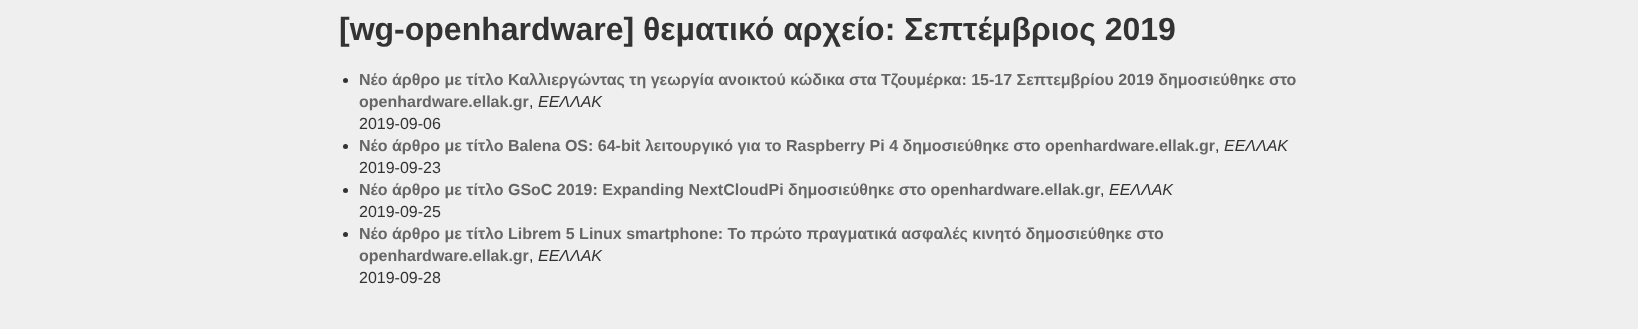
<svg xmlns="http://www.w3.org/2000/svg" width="1638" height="329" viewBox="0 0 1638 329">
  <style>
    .t1 { font: bold 32px Liberation Sans; fill: #333; }
    .t2 { font: bold 16px Liberation Sans; fill: #666; }
    .t3 { font: italic 16px Liberation Sans; fill: #333; }
    .t4 { font: 16px Liberation Sans; fill: #333; }
  </style>
  <rect width="100%" height="100%" fill="#efefef"/>
  <text x="339" y="40" class="t1">[wg-openhardware] θεματικό αρχείο: Σεπτέμβριος 2019</text>
  <circle cx="345.5" cy="80.5" r="2.5" fill="#333"/>
  <text x="359" y="85" class="t2">Νέο άρθρο με τίτλο Καλλιεργώντας τη γεωργία ανοικτού κώδικα στα Τζουμέρκα: 15-17 Σεπτεμβρίου 2019 δημοσιεύθηκε στο</text>
  <text x="359" y="107" class="t2">openhardware.ellak.gr</text>
  <text x="538" y="107" class="t3">ΕΕΛΛΑΚ</text>
  <text x="529" y="107" class="t4">,</text>
  <text x="359" y="129" class="t4">2019-09-06</text>
  <circle cx="345.5" cy="146.5" r="2.5" fill="#333"/>
  <text x="359" y="151" class="t2">Νέο άρθρο με τίτλο Balena OS: 64-bit λειτουργικό για το Raspberry Pi 4 δημοσιεύθηκε στο openhardware.ellak.gr</text>
  <text x="1224" y="151" class="t3">ΕΕΛΛΑΚ</text>
  <text x="1215" y="151" class="t4">,</text>
  <text x="359" y="173" class="t4">2019-09-23</text>
  <circle cx="345.5" cy="190.5" r="2.5" fill="#333"/>
  <text x="359" y="195" class="t2">Νέο άρθρο με τίτλο GSoC 2019: Expanding NextCloudPi δημοσιεύθηκε στο openhardware.ellak.gr</text>
  <text x="1109" y="195" class="t3">ΕΕΛΛΑΚ</text>
  <text x="1100" y="195" class="t4">,</text>
  <text x="359" y="217" class="t4">2019-09-25</text>
  <circle cx="345.5" cy="234.5" r="2.5" fill="#333"/>
  <text x="359" y="239" class="t2">Νέο άρθρο με τίτλο Librem 5 Linux smartphone: Το πρώτο πραγματικά ασφαλές κινητό δημοσιεύθηκε στο</text>
  <text x="359" y="261" class="t2">openhardware.ellak.gr</text>
  <text x="538" y="261" class="t3">ΕΕΛΛΑΚ</text>
  <text x="529" y="261" class="t4">,</text>
  <text x="359" y="283" class="t4">2019-09-28</text>
</svg>
